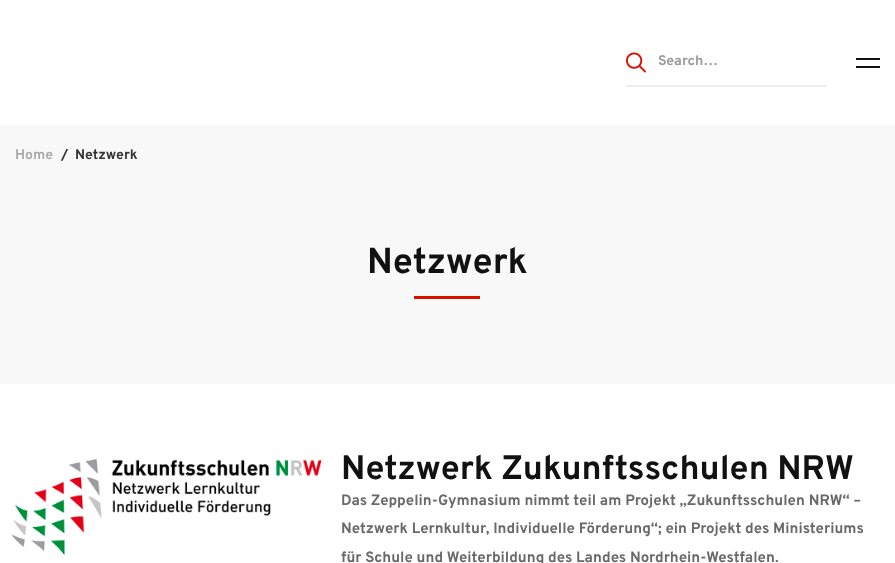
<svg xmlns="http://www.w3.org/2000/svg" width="895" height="563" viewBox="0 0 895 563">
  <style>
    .t1 { font: bold 14px Overpass; fill: #9b9b9b; }
    .t2 { font: bold 14px Overpass; fill: #ababab; }
    .t3 { font: bold 14px Overpass; fill: #333; }
    .t4 { font: bold 36px Overpass; fill: #111; }
    .t5 { font: bold 34px Overpass; fill: #111; }
    .t6 { font: bold 15px Overpass; fill: #696969; }
  </style>
  <rect width="100%" height="100%" fill="#fff"/>
  <image x="626" y="52" width="20" height="21" href="images/1.png"/>
  <rect x="626" y="85" width="200" height="2" fill="#ededed"/>
  <text x="658" y="65" class="t1">Search…</text>
  <rect x="856" y="58" width="24" height="2" fill="#131313"/>
  <rect x="856" y="66" width="24" height="2" fill="#131313"/>
  <rect x="0" y="125" width="895" height="259" fill="#f8f8f8"/>
  <text x="15" y="159" class="t2">Home</text>
  <text x="61" y="159" class="t3">/</text>
  <text x="75" y="159" class="t3">Netzwerk</text>
  <text x="367" y="273" class="t4">Netzwerk</text>
  <rect x="414" y="296" width="66" height="3" fill="#d90d00"/>
  <image x="11" y="459" width="311" height="97" href="images/2.png"/>
  <text x="341" y="479" class="t5">Netzwerk Zukunftsschulen NRW</text>
  <text x="341" y="505" class="t6">Das Zeppelin-Gymnasium nimmt teil am Projekt „Zukunftsschulen NRW“ –</text>
  <text x="341" y="533" class="t6">Netzwerk Lernkultur, Individuelle Förderung“; ein Projekt des Ministeriums</text>
  <text x="341" y="562" class="t6">für Schule und Weiterbildung des Landes Nordrhein-Westfalen.</text>
</svg>
